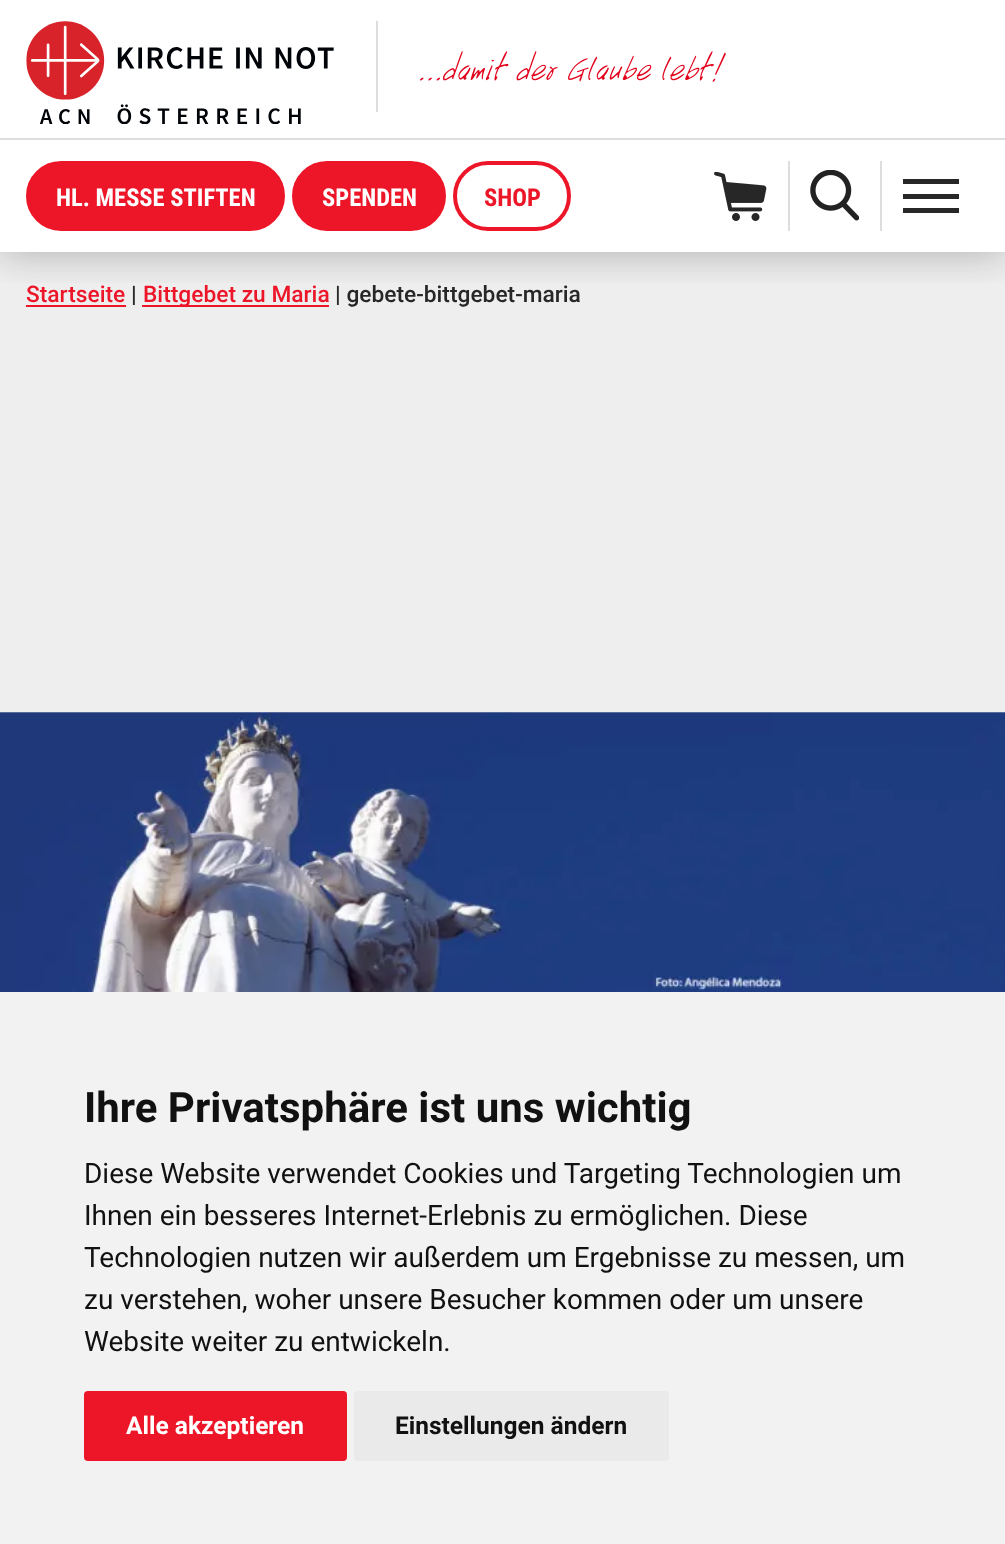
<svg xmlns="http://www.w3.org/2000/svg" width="1005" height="1544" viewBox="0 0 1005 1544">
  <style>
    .t1 { font: bold 24.5px Roboto Condensed; fill: #fff; }
    .t2 { font: bold 24.5px Roboto Condensed; fill: #ed1629; }
    .t3 { font: 500 22.75px Roboto; fill: #ed1629; }
    .t4 { font: 500 22.75px Roboto; fill: #272727; }
    .t5 { font: bold 42px Roboto; fill: #111; }
    .t6 { font: 28px Roboto; fill: #111; }
    .t7 { font: bold 24.5px Roboto; fill: #fff; }
    .t8 { font: bold 24.5px Roboto; fill: #111; }
  </style>
  <defs>
    <clipPath id="clip1"><rect x="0" y="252" width="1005" height="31"/></clipPath>
  </defs>
  <rect width="100%" height="100%" fill="#fff"/>
  <rect x="0" y="252" width="1005" height="460" fill="#eeeeef"/>
  <rect x="26" y="305" width="100" height="2" fill="#ed1629"/>
  <rect x="142" y="305" width="187" height="2" fill="#ed1629"/>
  <g clip-path="url(#clip1)">
    <rect x="0" y="2" width="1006" height="252" fill="#2727274d" filter="blur(19px)"/>
  </g>
  <rect x="0" y="138" width="1005" height="2" fill="#ddd"/>
  <image x="26" y="21" width="308" height="103" href="images/1.png"/>
  <rect x="376" y="21" width="2" height="91" fill="#ddd"/>
  <image x="420" y="51" width="306" height="31" href="images/2.png"/>
  <rect x="28" y="163" width="255" height="66" rx="33" fill="#ed1629" stroke="#ed1629" stroke-width="4"/>
  <text x="56" y="206" class="t1">HL. MESSE STIFTEN</text>
  <rect x="294" y="163" width="150" height="66" rx="33" fill="#ed1629" stroke="#ed1629" stroke-width="4"/>
  <text x="322" y="206" class="t1">SPENDEN</text>
  <rect x="455" y="163" width="114" height="66" rx="33" fill="none" stroke="#ed1629" stroke-width="4"/>
  <text x="484" y="206" class="t2">SHOP</text>
  <image x="714" y="172" width="53" height="49" href="images/3.png"/>
  <rect x="788" y="161" width="2" height="70" fill="#ddd"/>
  <image x="810" y="170" width="49" height="51" href="images/4.png"/>
  <rect x="880" y="161" width="2" height="70" fill="#ddd"/>
  <rect x="903" y="179" width="56" height="5" fill="#272727"/>
  <rect x="903" y="194" width="56" height="5" fill="#272727"/>
  <rect x="903" y="208" width="56" height="5" fill="#272727"/>
  <text x="26" y="302" class="t3">Startseite</text>
  <text x="131" y="302" class="t4">|</text>
  <text x="143" y="302" class="t3">Bittgebet zu Maria</text>
  <text x="335" y="302" class="t4">| gebete-bittgebet-maria</text>
  <image x="0" y="712" width="1005" height="280" href="images/5.png"/>
  <rect x="0" y="992" width="1005" height="552" fill="#f2f2f2"/>
  <text x="84" y="1122" class="t5">Ihre Privatsphäre ist uns wichtig</text>
  <text x="84" y="1183" class="t6">Diese Website verwendet Cookies und Targeting Technologien um</text>
  <text x="84" y="1225" class="t6">Ihnen ein besseres Internet-Erlebnis zu ermöglichen. Diese</text>
  <text x="84" y="1267" class="t6">Technologien nutzen wir außerdem um Ergebnisse zu messen, um</text>
  <text x="84" y="1309" class="t6">zu verstehen, woher unsere Besucher kommen oder um unsere</text>
  <text x="84" y="1351" class="t6">Website weiter zu entwickeln.</text>
  <rect x="84" y="1391" width="263" height="70" rx="4" fill="#ed1629"/>
  <text x="126" y="1434" class="t7">Alle akzeptieren</text>
  <rect x="354" y="1391" width="315" height="70" rx="4" fill="#eaeaea"/>
  <text x="395" y="1434" class="t8">Einstellungen ändern</text>
</svg>
